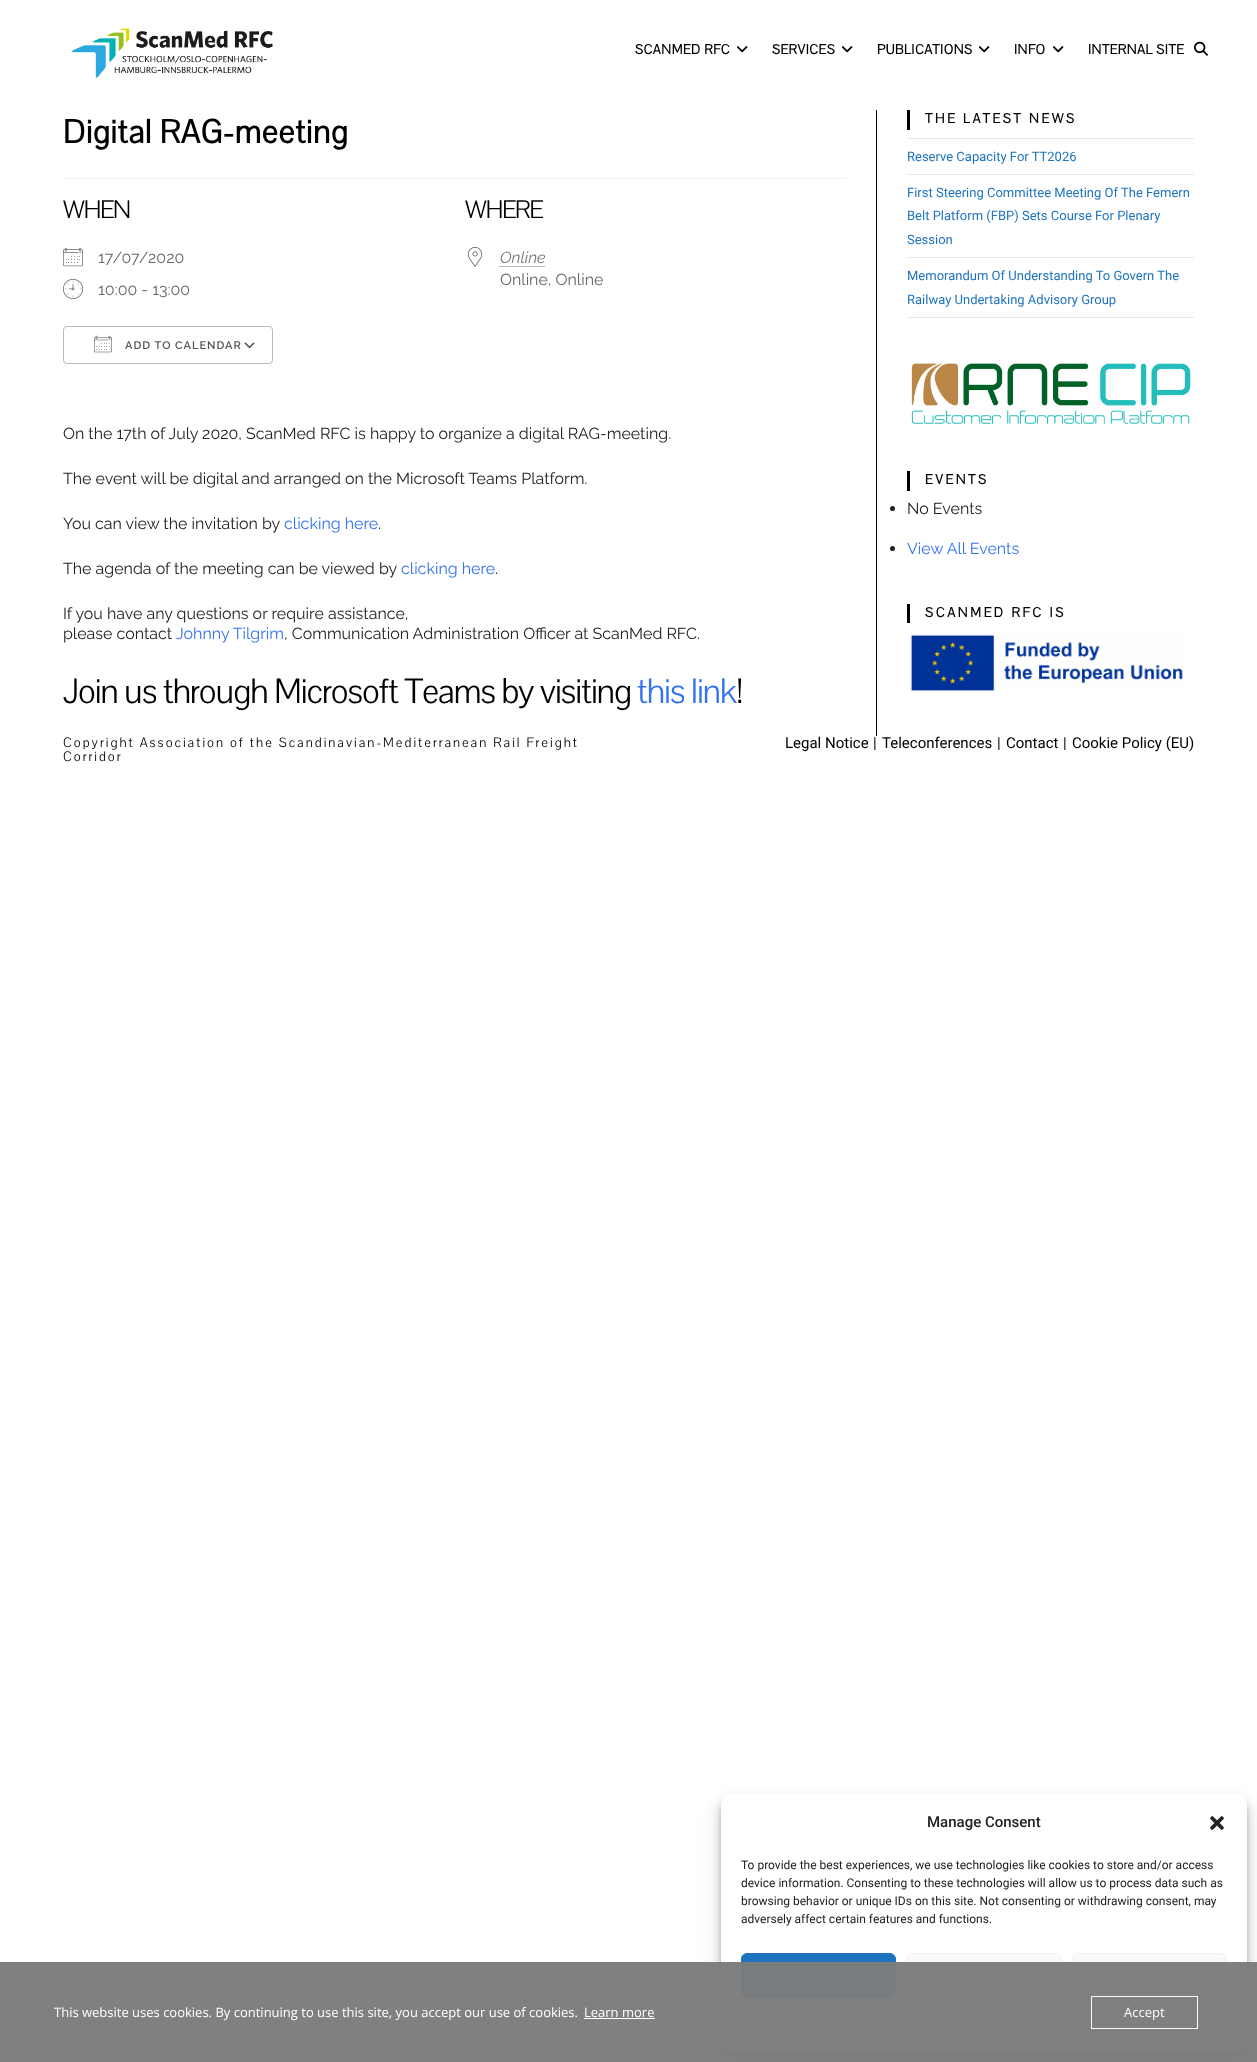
<svg xmlns="http://www.w3.org/2000/svg" width="1257" height="2062" viewBox="0 0 1257 2062">
  <style>
    .t1 { font: bold 14px Pavanam; letter-spacing: 0.6px; fill: #000; }
    .t2 { font: bold 34px Pavanam; letter-spacing: 0.6px; fill: #000; }
    .t3 { font: 26px Pavanam; letter-spacing: -1px; fill: #000; }
    .t4 { font: 16px Raleway; fill: #666; }
    .t5 { font: 600 11px Raleway; letter-spacing: 1px; fill: #545454; }
    .t6 { font: italic 16px Raleway; fill: #787878; }
    .t7 { font: 16px Raleway; fill: #212121; }
    .t8 { font: 16px Raleway; fill: #3372f0; }
    .t9 { font: 36px Pavanam; letter-spacing: -1px; fill: #000; }
    .t10 { font: 36px Pavanam; letter-spacing: -1px; fill: #3372f0; }
    .t11 { font: bold 14px Pavanam; letter-spacing: 2.75px; fill: #000; }
    .t12 { font: 13px Roboto; fill: #1e73be; }
    .t13 { font: 14px Pavanam; letter-spacing: 2px; fill: #000; }
    .t14 { font: 15px Roboto; fill: #000; }
    .t15 { font: 500 15px Roboto; fill: #212121; }
    .t16 { font: 12px Roboto; fill: #212121; }
    .t17 { font: 13px Open Sans; fill: #fff; }
  </style>
  <rect width="100%" height="100%" fill="#fff"/>
  <image x="71" y="28" width="202" height="50" href="images/1.png"/>
  <text x="635" y="54" class="t1">SCANMED RFC</text>
  <image x="737" y="46" width="11" height="7" href="images/2.png"/>
  <text x="772" y="54" class="t1">SERVICES</text>
  <image x="842" y="46" width="11" height="7" href="images/2.png"/>
  <text x="877" y="54" class="t1">PUBLICATIONS</text>
  <image x="979" y="46" width="11" height="7" href="images/2.png"/>
  <text x="1014" y="54" class="t1">INFO</text>
  <image x="1053" y="46" width="11" height="7" href="images/2.png"/>
  <text x="1088" y="54" class="t1">INTERNAL SITE</text>
  <image x="1194" y="41" width="14" height="15" href="images/3.png"/>
  <rect x="876" y="110" width="1" height="626" fill="#000"/>
  <rect x="63" y="178" width="783" height="1" fill="#f1f1f1"/>
  <text x="63" y="143" class="t2">Digital RAG-meeting</text>
  <text x="63" y="218" class="t3">WHEN</text>
  <image x="63" y="247" width="20" height="20" href="images/4.png"/>
  <text x="98" y="263" class="t4">17/07/2020</text>
  <image x="63" y="279" width="20" height="20" href="images/5.png"/>
  <text x="98" y="295" class="t4">10:00 - 13:00</text>
  <image x="244" y="342" width="11" height="7" href="images/6.png"/>
  <rect x="63.5" y="326.5" width="209" height="37" rx="3.5" fill="none" stroke="#bababa"/>
  <image x="94" y="335" width="18" height="18" href="images/7.png"/>
  <text x="125" y="349" class="t5">ADD TO CALENDAR</text>
  <text x="465" y="218" class="t3">WHERE</text>
  <image x="468" y="247" width="14" height="20" href="images/8.png"/>
  <text x="500" y="263" class="t6">Online</text>
  <path d="M499.5 266.5H545" fill="none" stroke="#787878" stroke-dasharray="1 1"/>
  <text x="500" y="285" class="t4">Online, Online</text>
  <text x="63" y="439" class="t7">On the 17th of July 2020, ScanMed RFC is happy to organize a digital RAG-meeting.</text>
  <text x="63" y="484" class="t7">The event will be digital and arranged on the Microsoft Teams Platform.</text>
  <text x="63" y="529" class="t7">You can view the invitation by</text>
  <text x="284" y="529" class="t8">clicking here</text>
  <text x="378" y="529" class="t7">.</text>
  <text x="63" y="574" class="t7">The agenda of the meeting can be viewed by</text>
  <text x="401" y="574" class="t8">clicking here</text>
  <text x="495" y="574" class="t7">.</text>
  <text x="63" y="619" class="t7">If you have any questions or require assistance,</text>
  <text x="63" y="639" class="t7">please contact</text>
  <text x="176" y="639" class="t8">Johnny Tilgrim</text>
  <text x="284" y="639" class="t7">, Communication Administration Officer at ScanMed RFC.</text>
  <text x="63" y="703" class="t9">Join us through Microsoft Teams by visiting</text>
  <text x="637" y="703" class="t10">this link</text>
  <text x="736" y="703" class="t9">!</text>
  <rect x="907" y="110" width="3" height="20" fill="#000"/>
  <text x="925" y="123" class="t11">THE LATEST NEWS</text>
  <rect x="907" y="138" width="287" height="1" fill="#e9e9e9"/>
  <rect x="907" y="174" width="287" height="1" fill="#e9e9e9"/>
  <text x="907" y="161" class="t12">Reserve Capacity For TT2026</text>
  <rect x="907" y="257" width="287" height="1" fill="#e9e9e9"/>
  <text x="907" y="197" class="t12">First Steering Committee Meeting Of The Femern</text>
  <text x="907" y="220" class="t12">Belt Platform (FBP) Sets Course For Plenary</text>
  <text x="907" y="244" class="t12">Session</text>
  <rect x="907" y="317" width="287" height="1" fill="#e9e9e9"/>
  <text x="907" y="280" class="t12">Memorandum Of Understanding To Govern The</text>
  <text x="907" y="304" class="t12">Railway Undertaking Advisory Group</text>
  <image x="911" y="363" width="280" height="61" href="images/9.png"/>
  <rect x="907" y="471" width="3" height="20" fill="#000"/>
  <text x="925" y="484" class="t11">EVENTS</text>
  <circle cx="892.5" cy="508.5" r="2.5" fill="#212121"/>
  <text x="907" y="514" class="t7">No Events</text>
  <circle cx="892.5" cy="548.5" r="2.5" fill="#212121"/>
  <text x="907" y="554" class="t8">View All Events</text>
  <rect x="907" y="604" width="3" height="19" fill="#000"/>
  <text x="925" y="617" class="t11">SCANMED RFC IS</text>
  <image x="910" y="634" width="273" height="58" href="images/10.png"/>
  <text x="63" y="747" class="t13">Copyright Association of the Scandinavian-Mediterranean Rail Freight</text>
  <text x="63" y="761" class="t13">Corridor</text>
  <text x="785" y="748" class="t14">Legal Notice</text>
  <text x="873" y="748" class="t14">|</text>
  <text x="882" y="748" class="t14">Teleconferences</text>
  <text x="997" y="748" class="t14">|</text>
  <text x="1006" y="748" class="t14">Contact</text>
  <text x="1063" y="748" class="t14">|</text>
  <text x="1072" y="748" class="t14">Cookie Policy (EU)</text>
  <rect x="721" y="1800" width="526" height="258" rx="12" fill="#0000003b" filter="blur(3px)"/>
  <rect x="721" y="1804" width="526" height="258" rx="12" fill="#00000030" filter="blur(10px)"/>
  <rect x="721" y="1794" width="526" height="258" rx="12" fill="#fff"/>
  <text x="927" y="1827" class="t15">Manage Consent</text>
  <image x="1210" y="1816" width="14" height="14" href="images/11.png"/>
  <text x="741" y="1869" class="t16">To provide the best experiences, we use technologies like cookies to store and/or access</text>
  <text x="741" y="1887" class="t16">device information. Consenting to these technologies will allow us to process data such as</text>
  <text x="741" y="1905" class="t16">browsing behavior or unique IDs on this site. Not consenting or withdrawing consent, may</text>
  <text x="741" y="1923" class="t16">adversely affect certain features and functions.</text>
  <rect x="741.5" y="1953.5" width="154" height="44" rx="5.5" fill="#1e73be" stroke="#1e73be"/>
  <rect x="906.5" y="1953.5" width="155" height="44" rx="5.5" fill="#f9f9f9" stroke="#f2f2f2"/>
  <rect x="1072.5" y="1953.5" width="154" height="44" rx="5.5" fill="#f9f9f9" stroke="#f2f2f2"/>
  <rect x="938" y="2028" width="72" height="1" fill="#1e73be"/>
  <rect x="0" y="1962" width="1257" height="100" fill="#7c7c7cf7"/>
  <text x="54" y="2017" class="t17">This website uses cookies. By continuing to use this site, you accept our use of cookies.</text>
  <text x="584" y="2017" class="t17">Learn more</text>
  <rect x="584" y="2018" width="71" height="1" fill="#fff"/>
  <rect x="1091.5" y="1996.5" width="106" height="32" fill="none" stroke="#fbfbfb"/>
  <text x="1124" y="2017" class="t17">Accept</text>
</svg>
